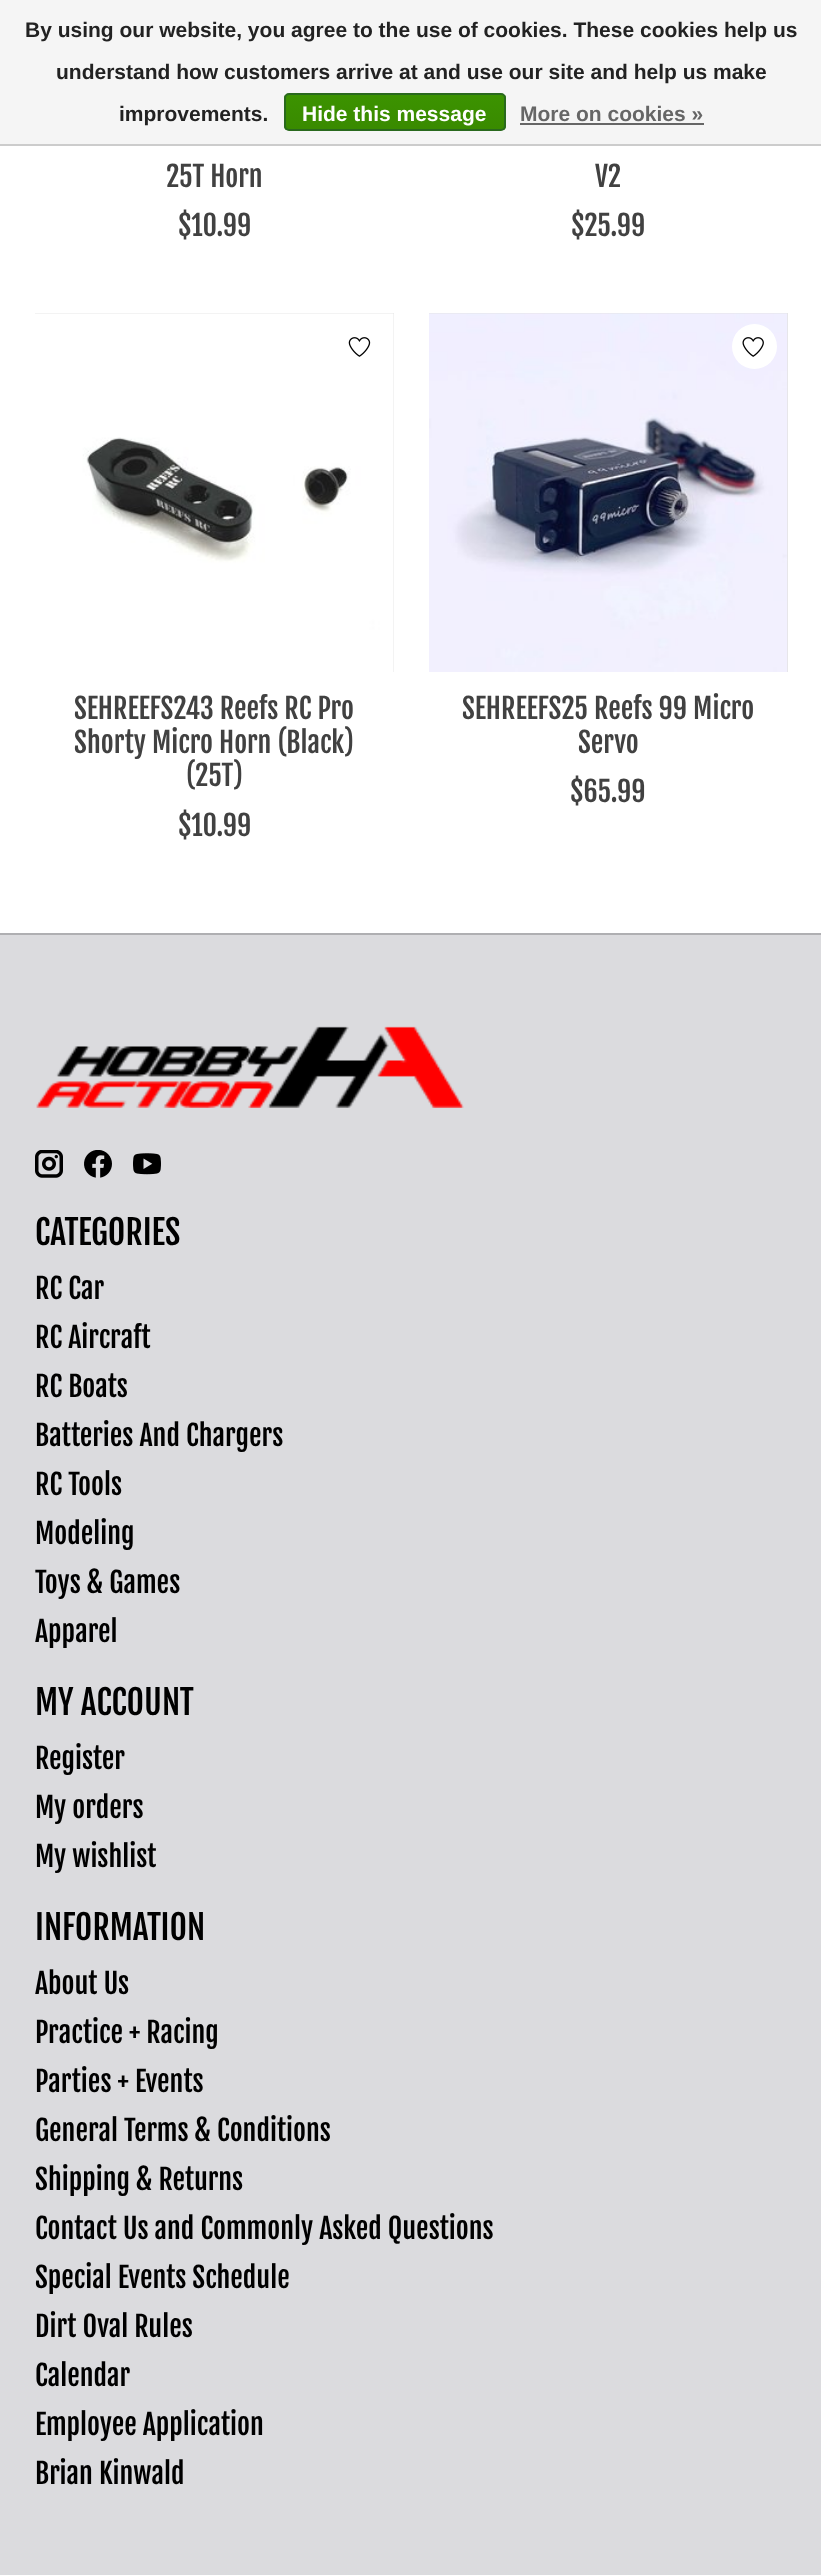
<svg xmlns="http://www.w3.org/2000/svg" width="821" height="2575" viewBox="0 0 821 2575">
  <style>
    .t1 { font: bold 21px Liberation Sans; fill: #222; }
    .t2 { font: bold 21px Liberation Sans; fill: #fff; }
    .t3 { font: bold 21px Liberation Sans; fill: #666; }
    .t4 { font: 28px Fjalla One; fill: #414141; }
    .t5 { font: 33.5px Fjalla One; fill: #000; }
    .t6 { font: 28px Fjalla One; fill: #000; }
  </style>
  <defs>
    <clipPath id="clip1"><rect x="284" y="93" width="222" height="38" rx="5"/></clipPath>
    <linearGradient id="g1" gradientUnits="userSpaceOnUse" x1="395" y1="94" x2="395" y2="130"><stop offset="0" stop-color="#3c9300"/><stop offset="1" stop-color="#398a00"/></linearGradient>
  </defs>
  <rect width="100%" height="100%" fill="#fff"/>
  <rect x="0" y="0" width="821" height="144" fill="#f5f5f5"/>
  <rect x="0" y="144" width="821" height="2" fill="#ccc"/>
  <text x="25" y="37" class="t1">By using our website, you agree to the use of cookies. These cookies help us</text>
  <text x="56" y="79" class="t1">understand how customers arrive at and use our site and help us make</text>
  <text x="119" y="121" class="t1">improvements.</text>
  <g clip-path="url(#clip1)">
    <rect x="284" y="95" width="222" height="35" fill="url(#g1)"/>
  </g>
  <rect x="285" y="94" width="220" height="36" rx="4" fill="none" stroke="#29691d" stroke-width="2"/>
  <text x="302" y="121" class="t2">Hide this message</text>
  <text x="520" y="121" class="t3">More on cookies »</text>
  <rect x="520" y="123" width="184" height="2" fill="#666"/>
  <text x="166" y="187" class="t4">25T Horn</text>
  <text x="178" y="236" class="t4">$10.99</text>
  <text x="595" y="187" class="t4">V2</text>
  <text x="571" y="236" class="t4">$25.99</text>
  <rect x="35" y="313" width="359" height="359" fill="#e3e3e3"/>
  <image x="35" y="313" width="359" height="359" href="images/1.png"/>
  <image x="348" y="337" width="23" height="20" href="images/2.png"/>
  <text x="74" y="719" class="t4">SEHREEFS243 Reefs RC Pro</text>
  <text x="74" y="753" class="t4">Shorty Micro Horn (Black)</text>
  <text x="186" y="786" class="t4">(25T)</text>
  <text x="178" y="836" class="t4">$10.99</text>
  <rect x="429" y="313" width="359" height="359" fill="#e3e3e3"/>
  <image x="429" y="313" width="359" height="359" href="images/3.png"/>
  <circle cx="754.5" cy="346.5" r="22.5" fill="#fff"/>
  <image x="742" y="337" width="22" height="20" href="images/4.png"/>
  <text x="462" y="719" class="t4">SEHREEFS25 Reefs 99 Micro</text>
  <text x="578" y="753" class="t4">Servo</text>
  <text x="570" y="802" class="t4">$65.99</text>
  <rect x="0" y="935" width="821" height="1640" fill="#dbdbde"/>
  <rect x="0" y="933" width="821" height="2" fill="#afafb2"/>
  <image x="36" y="1026" width="428" height="82" href="images/5.png"/>
  <image x="35" y="1150" width="28" height="28" href="images/6.png"/>
  <image x="84" y="1150" width="28" height="28" href="images/7.png"/>
  <image x="133" y="1153" width="28" height="22" href="images/8.png"/>
  <text x="35" y="1245" class="t5">CATEGORIES</text>
  <text x="35" y="1299" class="t6">RC Car</text>
  <text x="35" y="1348" class="t6">RC Aircraft</text>
  <text x="35" y="1397" class="t6">RC Boats</text>
  <text x="35" y="1446" class="t6">Batteries And Chargers</text>
  <text x="35" y="1495" class="t6">RC Tools</text>
  <text x="35" y="1544" class="t6">Modeling</text>
  <text x="35" y="1593" class="t6">Toys &amp; Games</text>
  <text x="35" y="1642" class="t6">Apparel</text>
  <text x="35" y="1715" class="t5">MY ACCOUNT</text>
  <text x="35" y="1769" class="t6">Register</text>
  <text x="35" y="1818" class="t6">My orders</text>
  <text x="35" y="1867" class="t6">My wishlist</text>
  <text x="35" y="1940" class="t5">INFORMATION</text>
  <text x="35" y="1994" class="t6">About Us</text>
  <text x="35" y="2043" class="t6">Practice + Racing</text>
  <text x="35" y="2092" class="t6">Parties + Events</text>
  <text x="35" y="2141" class="t6">General Terms &amp; Conditions</text>
  <text x="35" y="2190" class="t6">Shipping &amp; Returns</text>
  <text x="35" y="2239" class="t6">Contact Us and Commonly Asked Questions</text>
  <text x="35" y="2288" class="t6">Special Events Schedule</text>
  <text x="35" y="2337" class="t6">Dirt Oval Rules</text>
  <text x="35" y="2386" class="t6">Calendar</text>
  <text x="35" y="2435" class="t6">Employee Application</text>
  <text x="35" y="2484" class="t6">Brian Kinwald</text>
</svg>
